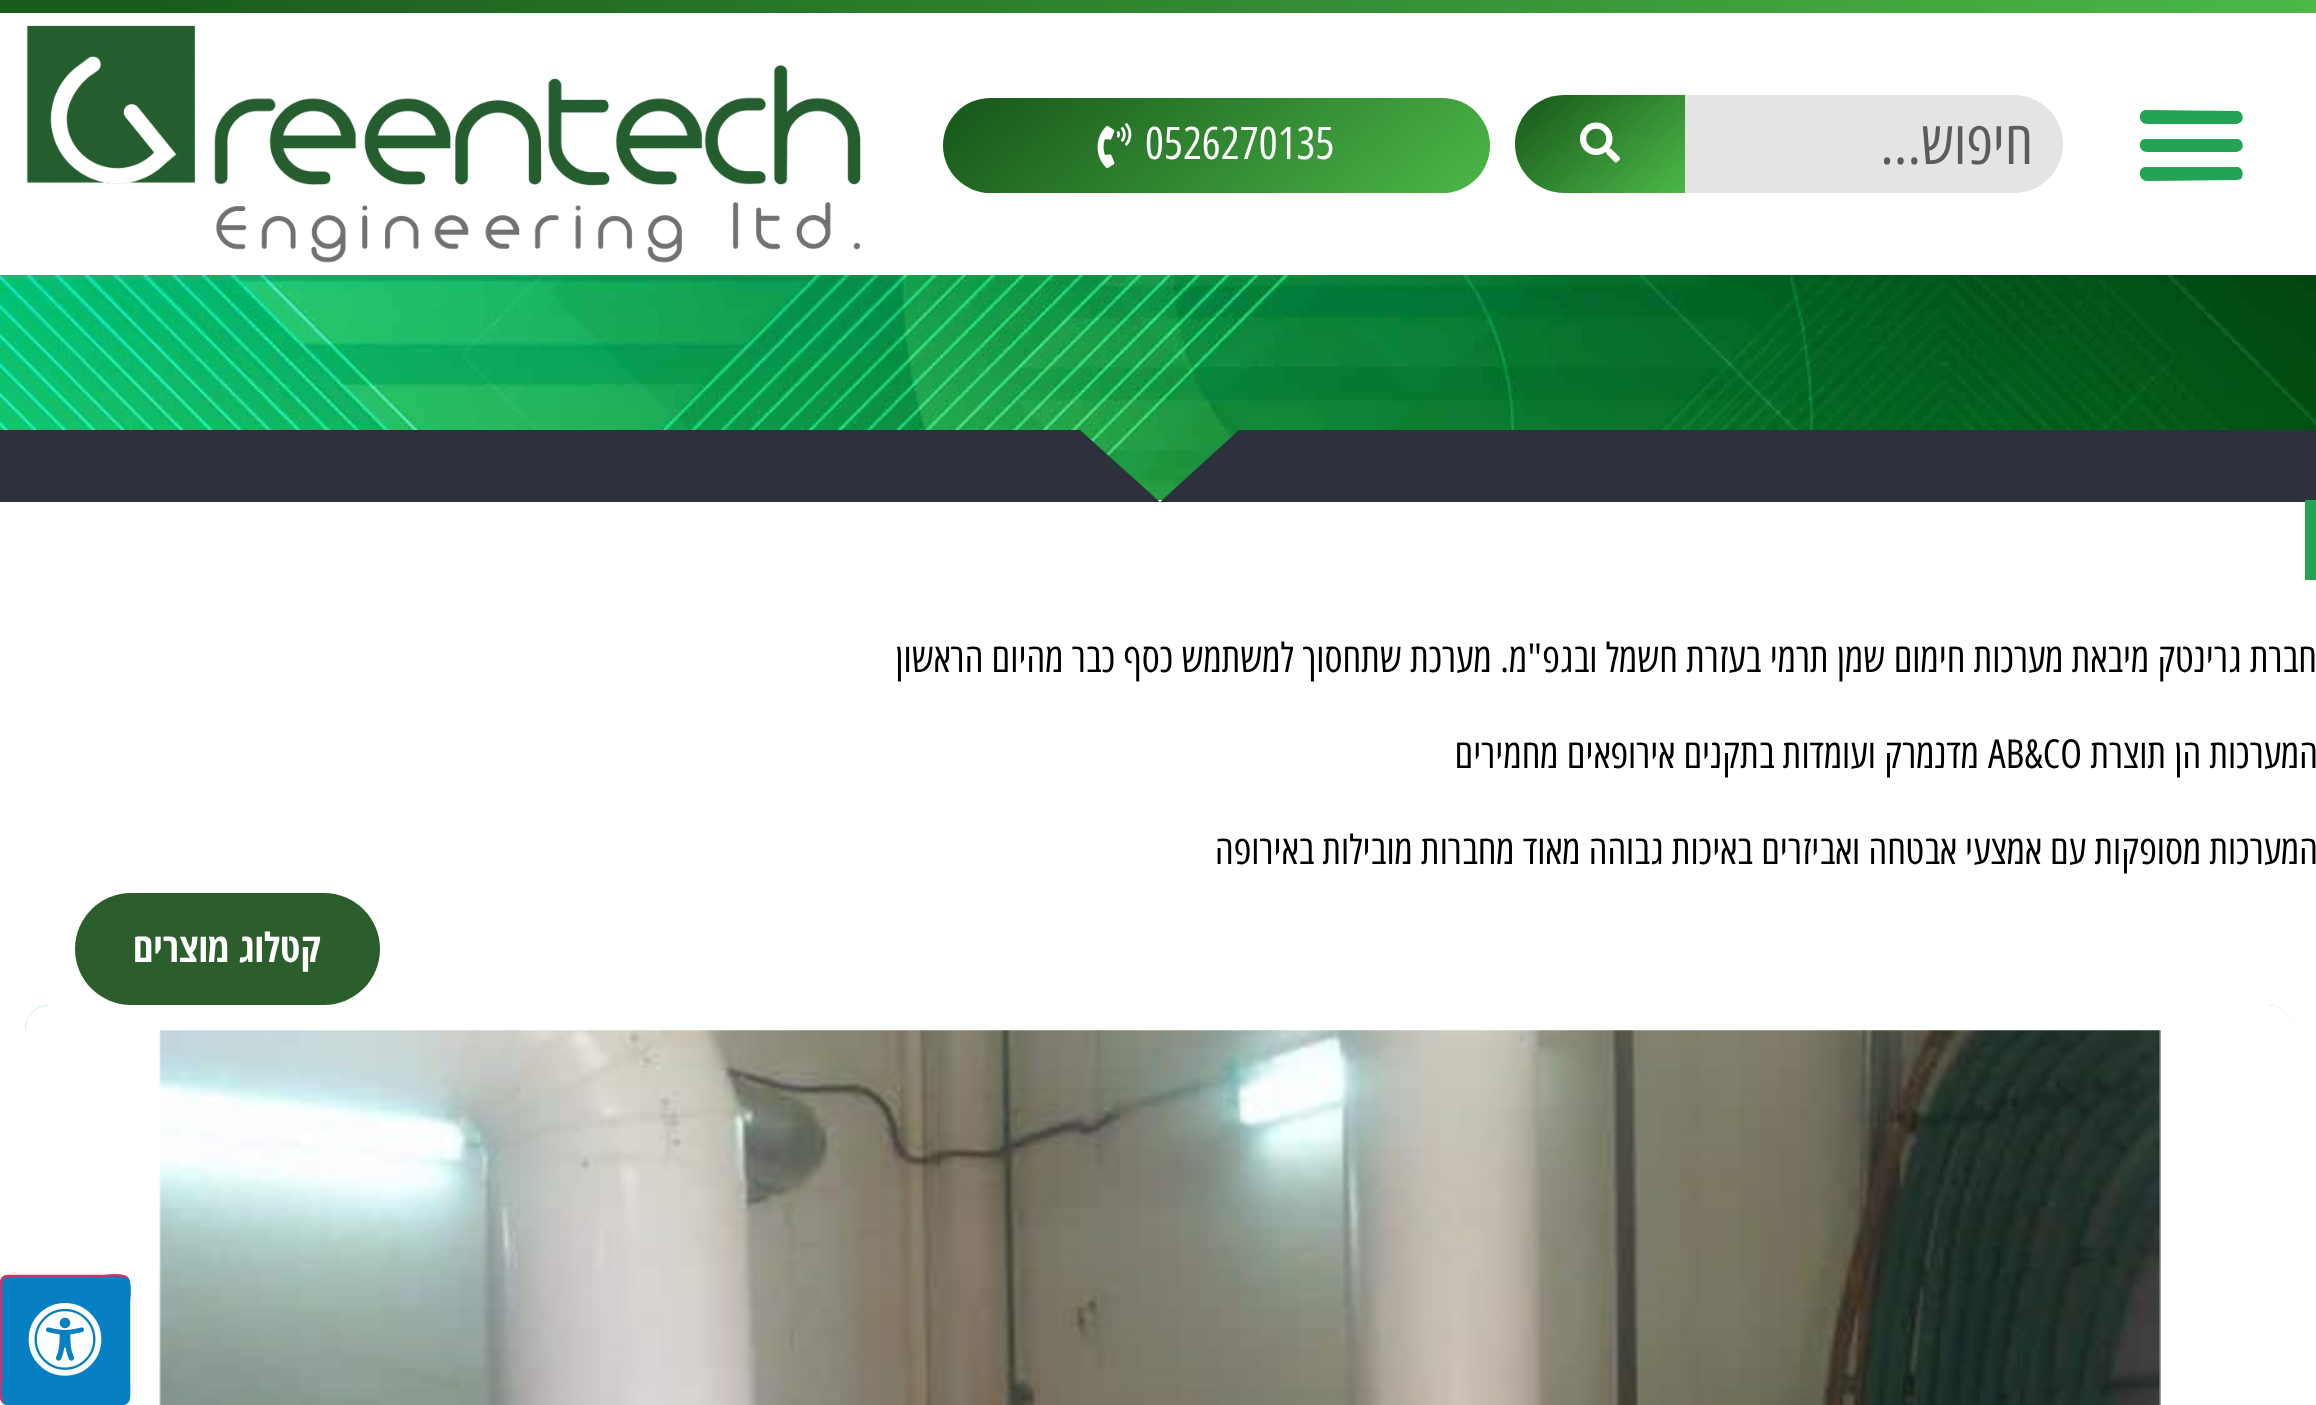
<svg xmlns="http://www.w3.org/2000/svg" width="2316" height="1405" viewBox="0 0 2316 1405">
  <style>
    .t1 { font: 60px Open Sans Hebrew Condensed; direction: rtl; fill: #5b5b5b; }
    .t2 { font: 45px Open Sans Hebrew Condensed; fill: #fff; }
    .t3 { font: 40px Open Sans Hebrew Condensed; direction: rtl; fill: #000; }
    .t4 { font: 40px Open Sans Hebrew Condensed; fill: #000; }
    .t5 { font: bold 40px Open Sans Hebrew Condensed; direction: rtl; fill: #fff; }
  </style>
  <defs>
    <linearGradient id="g1" gradientUnits="userSpaceOnUse" x1="677" y1="-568" x2="1641" y2="580"><stop offset="0.07" stop-color="#1a5c1c"/><stop offset="1" stop-color="#4cb848"/></linearGradient>
    <linearGradient id="g2" gradientUnits="userSpaceOnUse" x1="1541" y1="73" x2="1659" y2="214"><stop offset="0.07" stop-color="#1a5c1c"/><stop offset="1" stop-color="#4cb848"/></linearGradient>
    <linearGradient id="g3" gradientUnits="userSpaceOnUse" x1="1080" y1="-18" x2="1353" y2="308"><stop offset="0.07" stop-color="#1a5c1c"/><stop offset="1" stop-color="#4cb848"/></linearGradient>
  </defs>
  <rect width="100%" height="100%" fill="#fff"/>
  <rect x="0" y="0" width="2316" height="13" fill="url(#g1)"/>
  <path d="M2147 124H2237L2241 122C2244 119 2243 112 2238 111L2145 110C2137 112 2139 124 2147 124ZM2147 152H2237L2241 150C2244 147 2243 140 2238 139H2145C2137 140 2139 152 2147 152ZM2147 181L2237 180L2241 179C2244 175 2243 168 2238 167H2145C2137 168 2139 181 2147 181Z" fill="#23a455"/>
  <rect x="1515" y="95" width="548" height="98" rx="49" fill="#e4e4e4"/>
  <text x="2033" y="164" class="t1">חיפוש...</text>
  <path d="M1564 95H1685V193H1564C1537 193 1515 171 1515 144C1515 117 1537 95 1564 95Z" fill="url(#g2)"/>
  <image x="1580" y="122" width="40" height="41" href="images/1.png"/>
  <rect x="943" y="98" width="547" height="95" rx="47.5" fill="url(#g3)"/>
  <text x="1145" y="159" class="t2">0526270135</text>
  <image x="1097" y="123" width="35" height="46" href="images/2.png"/>
  <image x="26" y="25" width="835" height="238" href="images/3.png"/>
  <image x="0" y="275" width="2316" height="225" href="images/4.png"/>
  <path d="M1239 430L1160 502L1080 430H-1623V502H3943V430" fill="#2d313c"/>
  <rect x="2305" y="500" width="11" height="80" fill="#23a455"/>
  <text x="2317" y="672" class="t3">חברת גרינטק מיבאת מערכות חימום שמן תרמי בעזרת חשמל ובגפ"מ. מערכת שתחסוך למשתמש כסף כבר מהיום הראשון</text>
  <text x="2318" y="768" class="t3">המערכות הן תוצרת</text>
  <text x="1988" y="768" class="t4">AB&amp;CO</text>
  <text x="1979" y="768" class="t3">מדנמרק ועומדות בתקנים אירופאים מחמירים</text>
  <text x="2318" y="864" class="t3">המערכות מסופקות עם אמצעי אבטחה ואביזרים באיכות גבוהה מאוד מחברות מובילות באירופה</text>
  <rect x="75" y="893" width="305" height="112" rx="56" fill="#2c5d2c"/>
  <text x="321" y="962" class="t5">קטלוג מוצרים</text>
  <image x="25" y="1005" width="2268" height="25" href="images/5.png"/>
  <rect x="25" y="1005" width="2268" height="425" rx="25" fill="#fff"/>
  <image x="159" y="1030" width="2002" height="375" href="images/6.png"/>
  <rect x="0" y="1275" width="130" height="130" rx="8" fill="#0780c3"/>
  <path d="M127 1278C131.5 1283 129 1300 129 1301.5V1378.5C129 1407.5 132.5 1404 103.5 1404H26.5C25 1404 8 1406.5 3 1402" fill="none" stroke="#0780c3" stroke-width="2.5"/>
  <path d="M3 1402C-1.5 1397 1 1380 1 1378.5V1301.5C1 1272.5-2.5 1276 26.5 1276H103.5C105 1276 122 1273.5 127 1278" fill="none" stroke="#c36" stroke-width="2.5"/>
  <image x="28" y="1303" width="74" height="73" href="images/7.png"/>
</svg>
